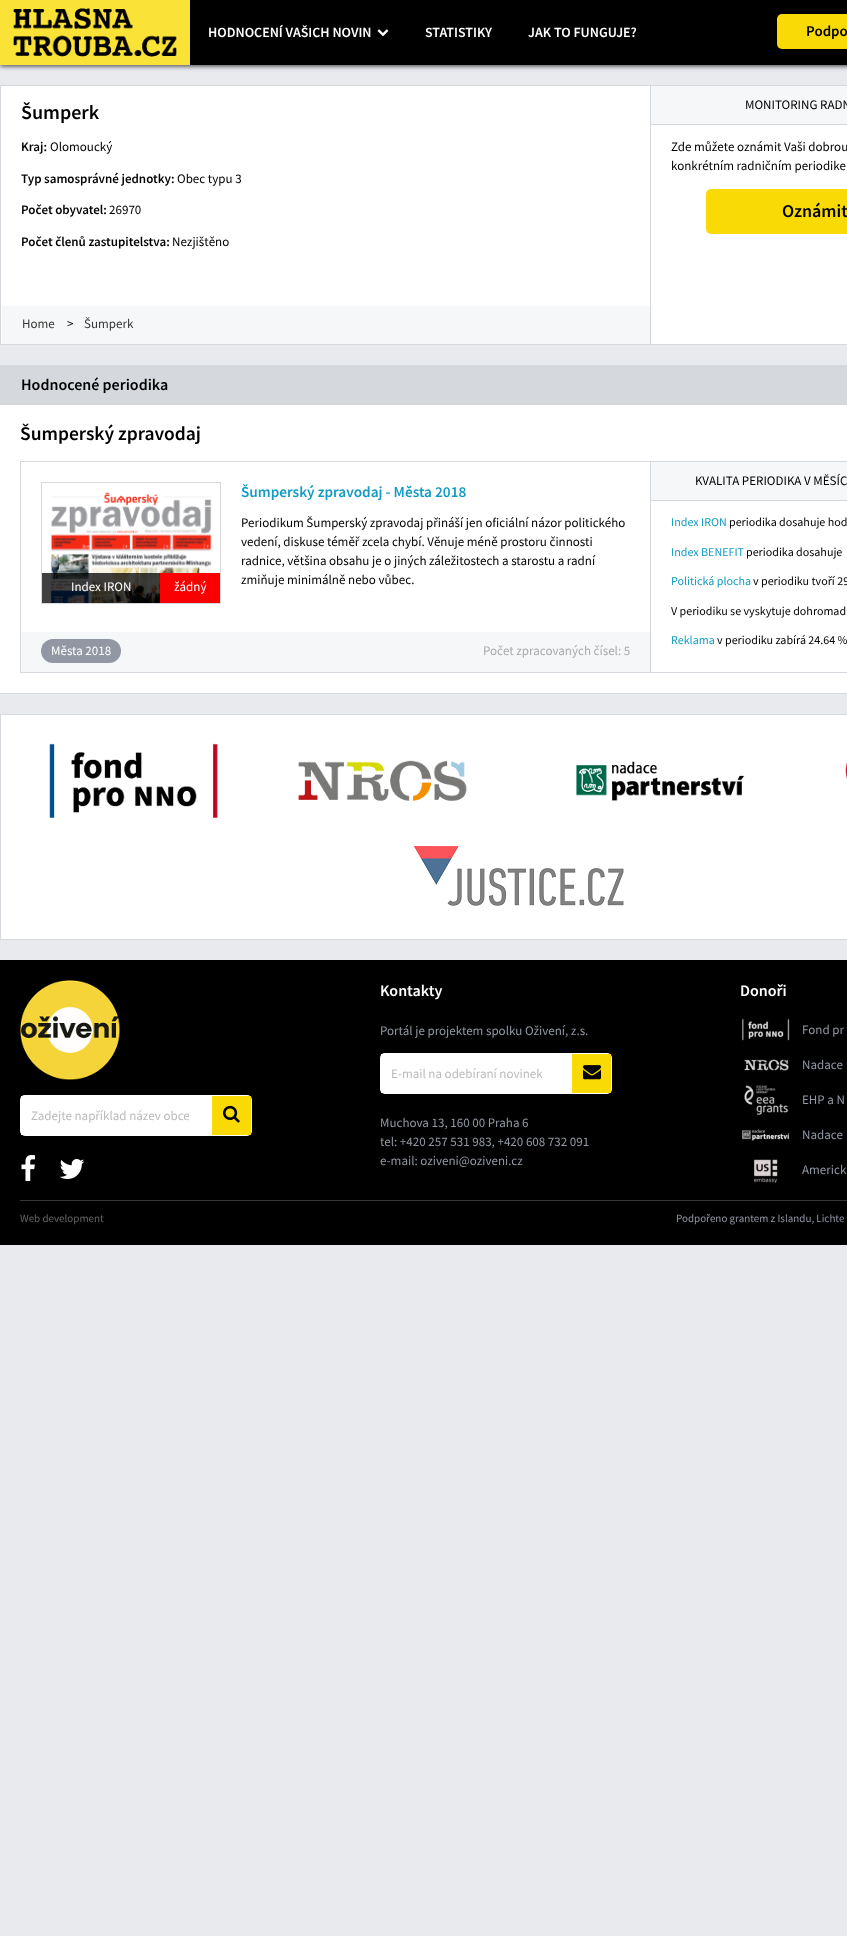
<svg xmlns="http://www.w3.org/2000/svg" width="847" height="1936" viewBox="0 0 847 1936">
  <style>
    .t1 { font: 600 14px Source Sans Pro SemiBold; fill: #fff; }
    .t2 { font: 600 15px Source Sans Pro SemiBold; fill: #000; }
    .t3 { font: 600 20px Source Sans Pro SemiBold; fill: #000; }
    .t4 { font: 600 13px Source Sans Pro SemiBold; fill: #000; }
    .t5 { font: 13px Source Sans Pro; fill: #000; }
    .t6 { font: 13px Source Sans Pro; fill: #363636; }
    .t7 { font: 600 18px Source Sans Pro SemiBold; fill: #000; }
    .t8 { font: 600 16px Source Sans Pro SemiBold; fill: #000; }
    .t9 { font: 600 19.5px Source Sans Pro SemiBold; fill: #000; }
    .t10 { font: 13px Source Sans Pro; fill: #fff; }
    .t11 { font: 600 15.25px Source Sans Pro SemiBold; fill: #139bc3; }
    .t12 { font: 13px Source Sans Pro; fill: #aaa; }
    .t13 { font: 12px Source Sans Pro; fill: #139bc3; }
    .t14 { font: 12px Source Sans Pro; fill: #000; }
    .t15 { font: 13px Source Sans Pro; fill: #bbbabd; }
    .t16 { font: 600 16px Source Sans Pro SemiBold; fill: #fff; }
    .t17 { font: 13px Source Sans Pro; fill: #9197a3; }
    .t18 { font: 11px Source Sans Pro; fill: #666; }
    .t19 { font: 11px Source Sans Pro; fill: #9197a3; }
  </style>
  <rect width="100%" height="100%" fill="#e9eaed"/>
  <rect x="0" y="1" width="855" height="65" fill="#000000bf" filter="blur(2.5px)"/>
  <rect x="190" y="0" width="657" height="65" fill="#000"/>
  <rect x="0" y="0" width="190" height="65" fill="#fbe236"/>
  <image x="13" y="8" width="164" height="49" href="images/1.png"/>
  <text x="208" y="37" class="t1">HODNOCENÍ VAŠICH NOVIN</text>
  <image x="377" y="29" width="12" height="8" href="images/2.png"/>
  <text x="425" y="37" class="t1">STATISTIKY</text>
  <text x="528" y="37" class="t1">JAK TO FUNGUJE?</text>
  <rect x="777" y="14" width="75" height="35" rx="5" fill="#f9da05"/>
  <text x="806" y="36" class="t2">Podpo</text>
  <rect x="1" y="86" width="649" height="258" fill="#fff"/>
  <rect x="0" y="85" width="650" height="1" fill="#d5d8dd"/>
  <rect x="0" y="344" width="650" height="1" fill="#d5d8dd"/>
  <rect x="0" y="85" width="1" height="260" fill="#d5d8dd"/>
  <text x="21" y="119" class="t3">Šumperk</text>
  <text x="21" y="151" class="t4">Kraj:</text>
  <text x="50" y="151" class="t5">Olomoucký</text>
  <text x="21" y="183" class="t4">Typ samosprávné jednotky:</text>
  <text x="177" y="183" class="t5">Obec typu 3</text>
  <text x="21" y="214" class="t4">Počet obyvatel:</text>
  <text x="109" y="214" class="t5">26970</text>
  <text x="21" y="246" class="t4">Počet členů zastupitelstva:</text>
  <text x="172" y="246" class="t5">Nezjištěno</text>
  <rect x="2" y="306" width="648" height="38" fill="#f6f7f8"/>
  <text x="22" y="328" class="t6">Home</text>
  <text x="67" y="328" class="t5">&gt;</text>
  <text x="84" y="328" class="t6">Šumperk</text>
  <rect x="651" y="125" width="196" height="219" fill="#fff"/>
  <rect x="650.5" y="85.5" width="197" height="259" fill="none" stroke="#d5d8dd"/>
  <rect x="651" y="86" width="196" height="38" fill="#f6f7f8"/>
  <rect x="651" y="124" width="196" height="1" fill="#d5d8dd"/>
  <text x="745" y="109" class="t5">MONITORING RADN</text>
  <text x="671" y="151" class="t5">Zde můžete oznámit Vaši dobrou</text>
  <text x="671" y="170" class="t5">konkrétním radničním periodike</text>
  <rect x="706" y="189" width="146" height="45" rx="5" fill="#f9da05"/>
  <text x="782" y="217" class="t7">Oznámit</text>
  <rect x="0" y="405" width="847" height="288" fill="#fff"/>
  <rect x="0" y="693" width="847" height="1" fill="#d5d8dd"/>
  <rect x="0" y="365" width="847" height="40" fill="#d5d8dd"/>
  <text x="21" y="390" class="t8">Hodnocené periodika</text>
  <text x="20" y="440" class="t9">Šumperský zpravodaj</text>
  <rect x="20.5" y="461.5" width="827" height="211" fill="none" stroke="#d5d8dd"/>
  <rect x="41.5" y="482.5" width="179" height="121" fill="none" stroke="#d5d8dd"/>
  <image x="50" y="492" width="162" height="111" href="images/3.png"/>
  <rect x="42" y="573" width="118" height="30" fill="#000000bf"/>
  <text x="71" y="591" class="t10">Index IRON</text>
  <rect x="160" y="573" width="60" height="30" fill="#fb0000"/>
  <text x="174" y="591" class="t10">žádný</text>
  <text x="241" y="497" class="t11">Šumperský zpravodaj - Města 2018</text>
  <text x="241" y="527" class="t5">Periodikum Šumperský zpravodaj přináší jen oficiální názor politického</text>
  <text x="241" y="546" class="t5">vedení, diskuse téměř zcela chybí. Věnuje méně prostoru činnosti</text>
  <text x="241" y="565" class="t5">radnice, většina obsahu je o jiných záležitostech a starostu a radní</text>
  <text x="241" y="584" class="t5">zmiňuje minimálně nebo vůbec.</text>
  <rect x="21" y="632" width="629" height="40" fill="#f6f7f8"/>
  <rect x="41" y="639" width="80" height="24" rx="12" fill="#9197a3"/>
  <text x="51" y="655" class="t10">Města 2018</text>
  <text x="483" y="655" class="t12">Počet zpracovaných čísel: 5</text>
  <rect x="650" y="462" width="1" height="210" fill="#d5d8dd"/>
  <rect x="651" y="462" width="196" height="38" fill="#f6f7f8"/>
  <rect x="651" y="500" width="196" height="1" fill="#d5d8dd"/>
  <text x="695" y="485" class="t5">KVALITA PERIODIKA V MĚSÍC</text>
  <text x="671" y="526" class="t13">Index IRON</text>
  <text x="729" y="526" class="t14">periodika dosahuje hod</text>
  <text x="671" y="556" class="t13">Index BENEFIT</text>
  <text x="746" y="556" class="t14">periodika dosahuje</text>
  <text x="671" y="585" class="t13">Politická plocha</text>
  <text x="753" y="585" class="t14">v periodiku tvoří 29</text>
  <text x="671" y="615" class="t14">V periodiku se vyskytuje dohromad</text>
  <text x="671" y="644" class="t13">Reklama</text>
  <text x="717" y="644" class="t14">v periodiku zabírá 24.64 %</text>
  <rect x="0.5" y="714.5" width="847" height="225" fill="#fff" stroke="#d5d8dd"/>
  <image x="49" y="743" width="798" height="75" href="images/4.png"/>
  <image x="414" y="846" width="210" height="60" href="images/5.png"/>
  <rect x="0" y="960" width="847" height="285" fill="#000"/>
  <image x="20" y="980" width="100" height="100" href="images/6.png"/>
  <rect x="20" y="1095" width="232" height="41" rx="5" fill="#fff"/>
  <rect x="21" y="1096" width="1" height="39" fill="#fff"/>
  <text x="31" y="1120" class="t15">Zadejte například název obce</text>
  <rect x="212" y="1096" width="39" height="39" fill="#f9da05"/>
  <image x="223" y="1105" width="17" height="18" href="images/7.png"/>
  <image x="21" y="1155" width="14" height="26" href="images/8.png"/>
  <image x="59" y="1159" width="26" height="20" href="images/9.png"/>
  <text x="380" y="996" class="t16">Kontakty</text>
  <text x="380" y="1035" class="t17">Portál je projektem spolku Oživení, z.s.</text>
  <rect x="380" y="1053" width="232" height="41" rx="5" fill="#fff"/>
  <rect x="381" y="1054" width="1" height="39" fill="#fff"/>
  <text x="391" y="1078" class="t15">E-mail na odebíraní novinek</text>
  <rect x="572" y="1054" width="39" height="39" fill="#f9da05"/>
  <image x="583" y="1065" width="18" height="15" href="images/10.png"/>
  <text x="380" y="1127" class="t17">Muchova 13, 160 00 Praha 6</text>
  <text x="380" y="1146" class="t17">tel: +420 257 531 983, +420 608 732 091</text>
  <text x="380" y="1165" class="t17">e-mail: oziveni@oziveni.cz</text>
  <text x="740" y="996" class="t16">Donoři</text>
  <image x="742" y="1019" width="48" height="22" href="images/11.png"/>
  <text x="802" y="1034" class="t17">Fond pr</text>
  <image x="744" y="1059" width="45" height="12" href="images/12.png"/>
  <text x="802" y="1069" class="t17">Nadace</text>
  <image x="744" y="1085" width="45" height="30" href="images/13.png"/>
  <text x="802" y="1104" class="t17">EHP a N</text>
  <image x="742" y="1129" width="48" height="12" href="images/14.png"/>
  <text x="802" y="1139" class="t17">Nadace</text>
  <image x="753" y="1159" width="25" height="24" href="images/15.png"/>
  <text x="802" y="1174" class="t17">Americk</text>
  <rect x="20" y="1200" width="827" height="1" fill="#363636"/>
  <text x="20" y="1222" class="t18">Web development</text>
  <text x="676" y="1222" class="t19">Podpořeno grantem z Islandu, Lichte</text>
</svg>
